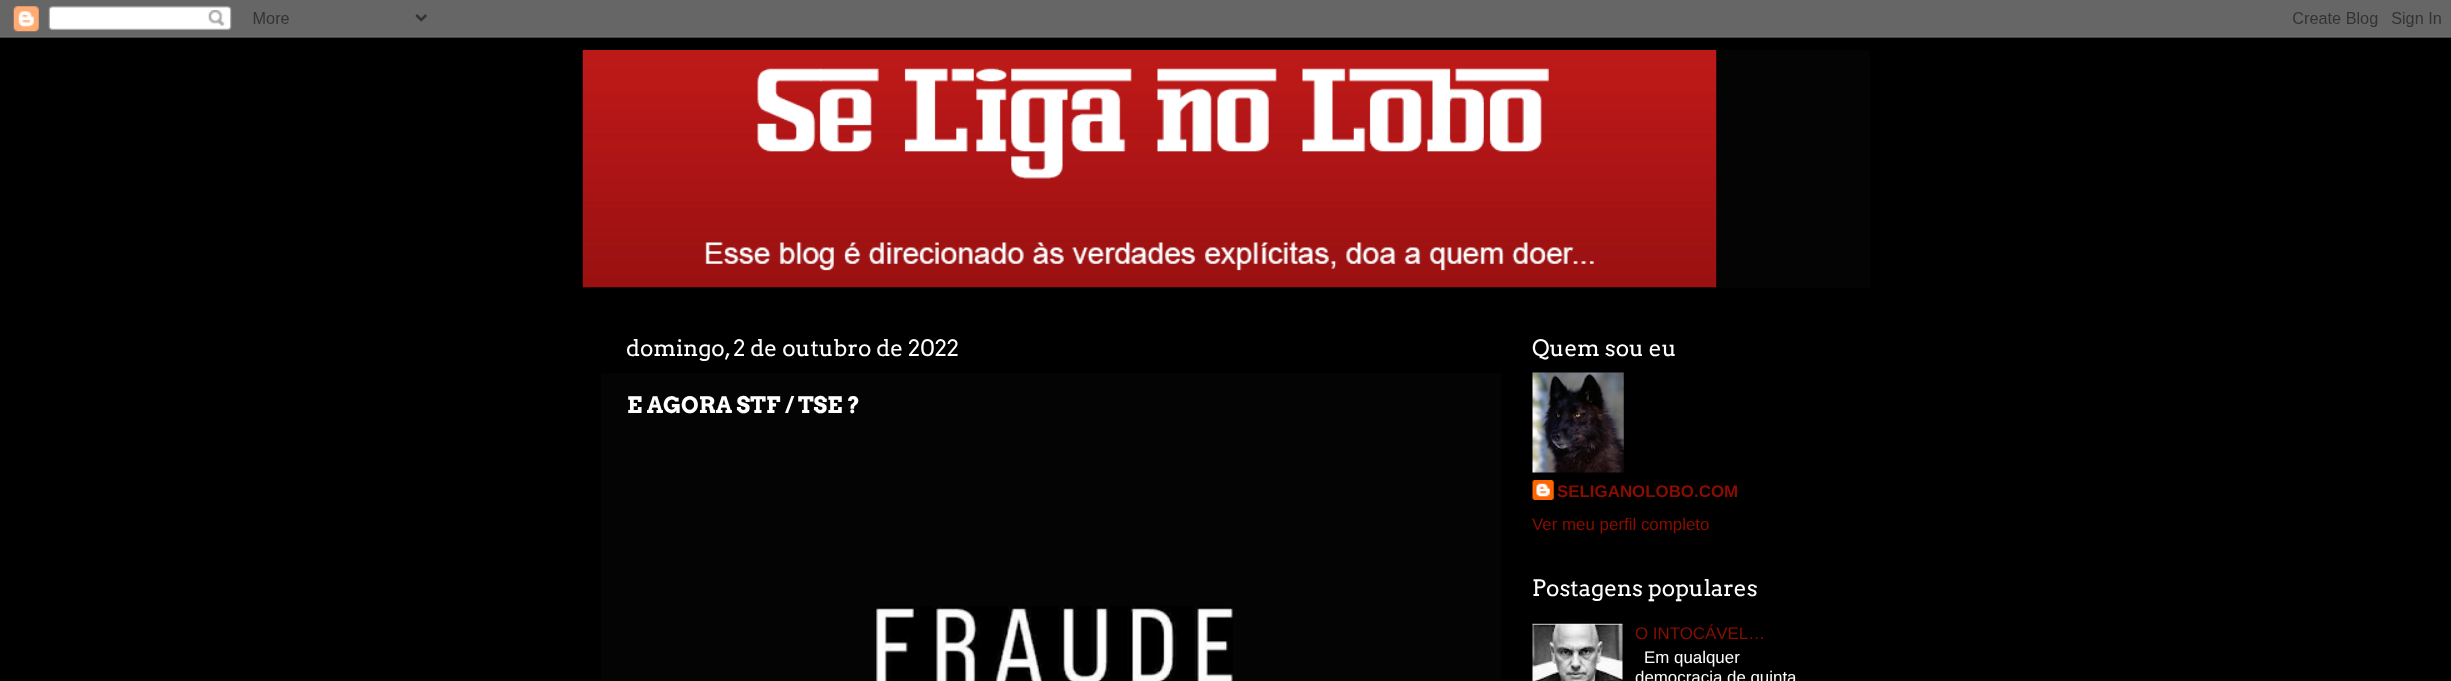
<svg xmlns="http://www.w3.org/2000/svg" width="2451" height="681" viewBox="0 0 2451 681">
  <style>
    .t1 { font: 22.5px Arvo; fill: #fff; }
    .t2 { font: bold 22.5px Arvo; fill: #fff; }
    .t3 { font: bold 16.9px Liberation Sans; fill: #8a0e00; }
    .t4 { font: 16.9px Liberation Sans; fill: #8a0e00; }
    .t5 { font: 16.9px Liberation Sans; fill: #fff; }
  </style>
  <rect width="100%" height="100%" fill="#000"/>
  <image x="0" y="0" width="2451" height="38" href="images/1.png"/>
  <rect x="583" y="50" width="1287" height="238" fill="#040404"/>
  <image x="582" y="50" width="1135" height="238" href="images/2.png"/>
  <text x="626" y="356" class="t1">domingo, 2 de outubro de 2022</text>
  <rect x="601" y="373" width="900" height="308" fill="#040404"/>
  <text x="627" y="413" class="t2">E AGORA STF / TSE ?</text>
  <image x="874" y="606" width="359" height="75" href="images/3.png"/>
  <text x="1532" y="356" class="t1">Quem sou eu</text>
  <image x="1532" y="372" width="92" height="101" href="images/4.png"/>
  <image x="1532" y="480" width="22" height="20" href="images/5.png"/>
  <text x="1557" y="497" class="t3">SELIGANOLOBO.COM</text>
  <text x="1532" y="530" class="t4">Ver meu perfil completo</text>
  <text x="1532" y="596" class="t1">Postagens populares</text>
  <image x="1532" y="623" width="91" height="58" href="images/6.png"/>
  <text x="1635" y="639" class="t4">O INTOCÁVEL…</text>
  <text x="1644" y="663" class="t5">Em qualquer</text>
  <text x="1635" y="683" class="t5">democracia de quinta</text>
</svg>
